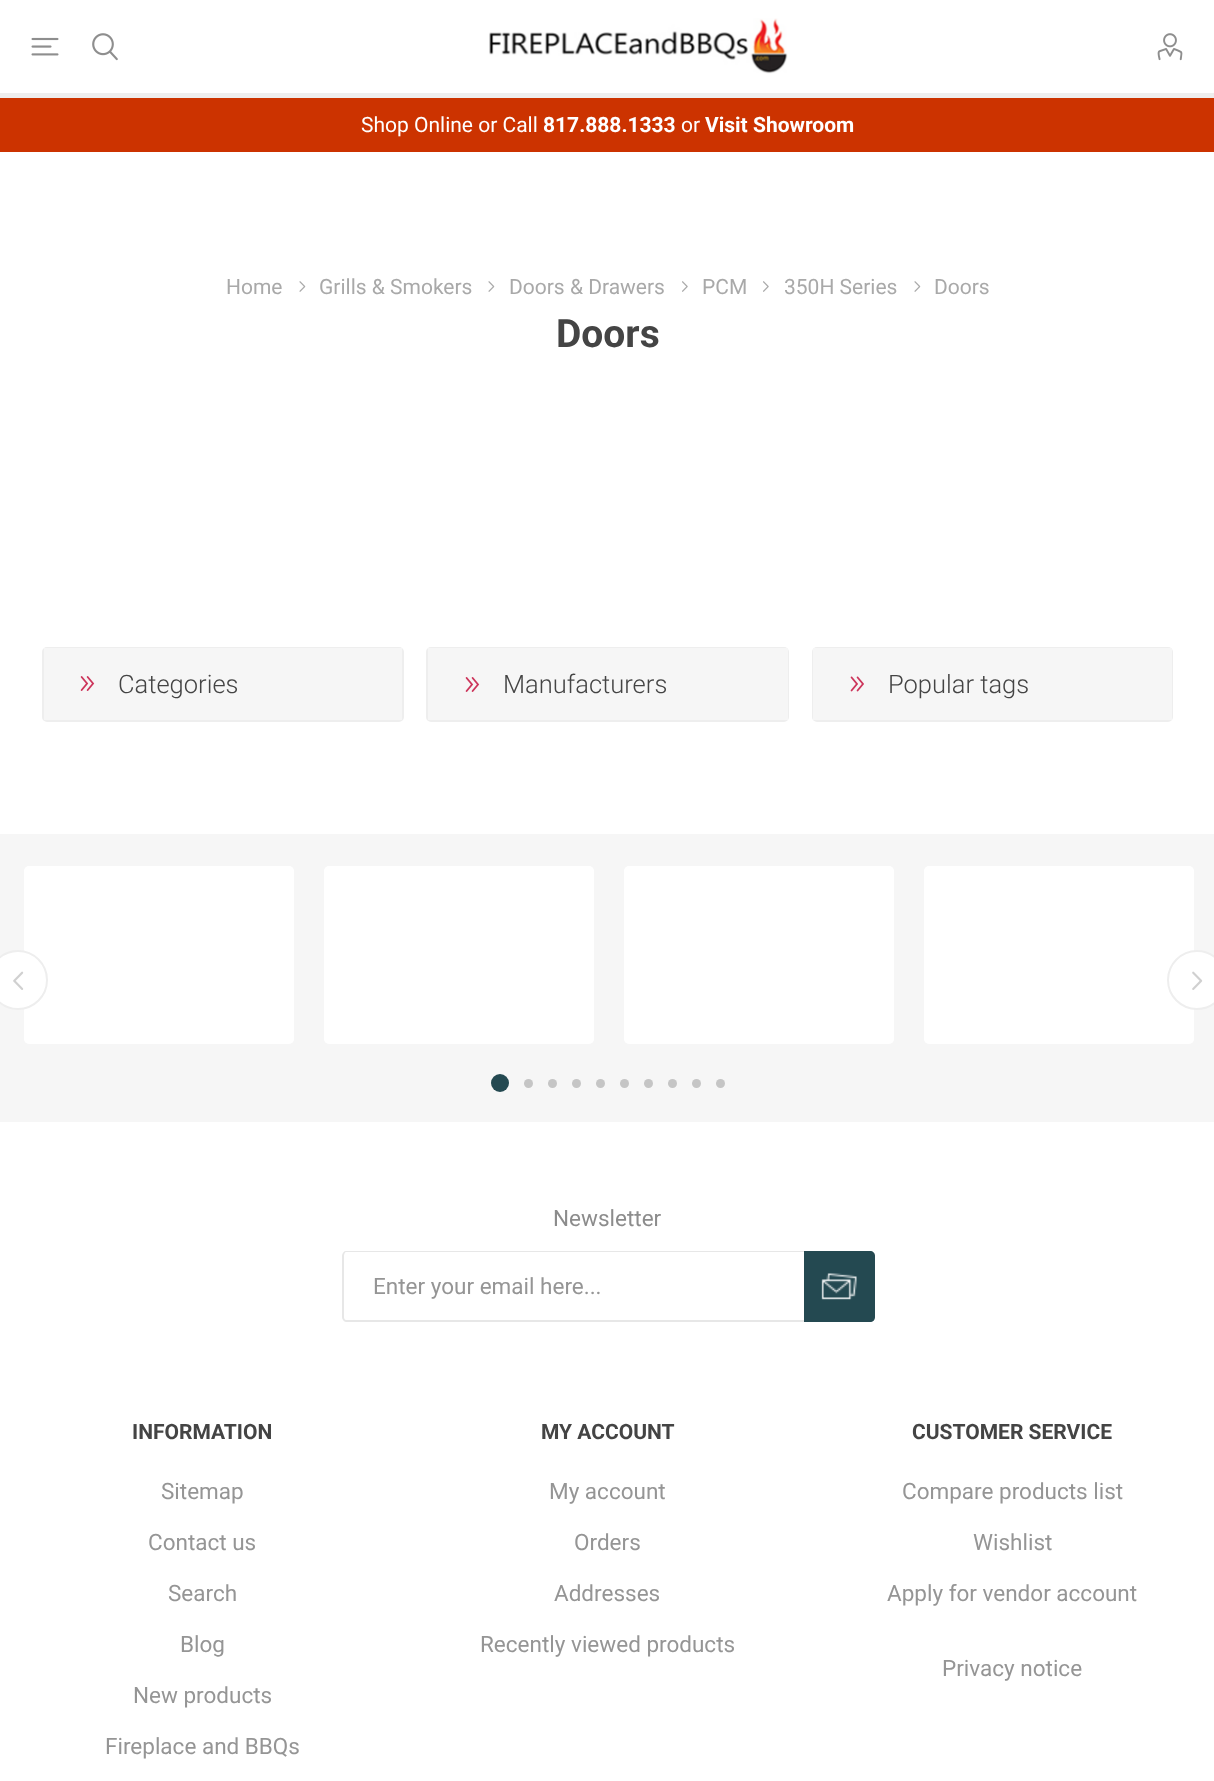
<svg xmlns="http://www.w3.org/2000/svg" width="1214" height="1781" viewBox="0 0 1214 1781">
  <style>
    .t1 { font: 21px Roboto; fill: #fff; }
    .t2 { font: bold 21px Roboto; fill: #fff; }
    .t3 { font: 21px Roboto; fill: #a9a9a9; }
    .t4 { font: bold 39px Roboto; fill: #444; }
    .t5 { font: 300 25.5px Roboto; fill: #444; }
    .t6 { font: 22.5px Roboto; fill: #8c8c8c; }
    .t7 { font: 22.5px Roboto; fill: #959595; }
    .t8 { font: bold 21px Roboto; fill: #444; }
  </style>
  <rect width="100%" height="100%" fill="#fff"/>
  <rect x="0" y="93" width="1214" height="5" fill="#eee"/>
  <image x="31" y="37" width="28" height="19" href="images/1.png"/>
  <image x="92" y="33" width="26" height="28" href="images/2.png"/>
  <image x="489" y="18" width="299" height="56" href="images/3.png"/>
  <image x="1157" y="33" width="26" height="28" href="images/4.png"/>
  <rect x="0" y="98" width="1214" height="54" fill="#c30"/>
  <text x="361" y="132" class="t1">Shop Online or Call</text>
  <text x="543" y="132" class="t2">817.888.1333</text>
  <text x="681" y="132" class="t1">or</text>
  <text x="705" y="132" class="t2">Visit Showroom</text>
  <text x="226" y="294" class="t3">Home</text>
  <image x="299" y="281" width="7" height="11" href="images/5.png"/>
  <text x="319" y="294" class="t3">Grills &amp; Smokers</text>
  <image x="488" y="281" width="7" height="11" href="images/5.png"/>
  <text x="509" y="294" class="t3">Doors &amp; Drawers</text>
  <image x="682" y="281" width="6" height="11" href="images/6.png"/>
  <text x="702" y="294" class="t3">PCM</text>
  <image x="763" y="281" width="6" height="11" href="images/6.png"/>
  <text x="784" y="294" class="t3">350H Series</text>
  <image x="914" y="281" width="7" height="11" href="images/5.png"/>
  <text x="934" y="294" class="t3">Doors</text>
  <text x="556" y="347" class="t4">Doors</text>
  <rect x="43" y="648" width="360" height="73" rx="4" fill="none" stroke="#eee" stroke-width="2"/>
  <rect x="44" y="648" width="358" height="72" fill="#f6f6f6"/>
  <image x="80" y="676" width="15" height="15" href="images/7.png"/>
  <text x="118" y="693" class="t5">Categories</text>
  <rect x="427" y="648" width="361" height="73" rx="4" fill="none" stroke="#eee" stroke-width="2"/>
  <rect x="428" y="648" width="360" height="72" fill="#f6f6f6"/>
  <image x="465" y="677" width="15" height="15" href="images/8.png"/>
  <text x="503" y="693" class="t5">Manufacturers</text>
  <rect x="813" y="648" width="359" height="73" rx="4" fill="none" stroke="#eee" stroke-width="2"/>
  <rect x="813" y="648" width="359" height="72" fill="#f6f6f6"/>
  <image x="850" y="676" width="14" height="16" href="images/9.png"/>
  <text x="888" y="693" class="t5">Popular tags</text>
  <rect x="0" y="834" width="1214" height="288" fill="#f6f6f6"/>
  <rect x="24" y="866" width="270" height="178" rx="5" fill="#fff"/>
  <circle cx="18" cy="980" r="29" fill="#fff" stroke="#eee" stroke-width="2"/>
  <image x="13" y="971" width="11" height="19" href="images/10.png"/>
  <rect x="324" y="866" width="270" height="178" rx="5" fill="#fff"/>
  <rect x="624" y="866" width="270" height="178" rx="5" fill="#fff"/>
  <rect x="924" y="866" width="270" height="178" rx="5" fill="#fff"/>
  <circle cx="1197" cy="980" r="29" fill="#fff" stroke="#eee" stroke-width="2"/>
  <image x="1192" y="971" width="11" height="19" href="images/11.png"/>
  <circle cx="500" cy="1083" r="9" fill="#244951"/>
  <circle cx="528.5" cy="1083.5" r="4.5" fill="#c5c5c5"/>
  <circle cx="552.5" cy="1083.5" r="4.5" fill="#c5c5c5"/>
  <circle cx="576.5" cy="1083.5" r="4.5" fill="#c5c5c5"/>
  <circle cx="600.5" cy="1083.5" r="4.5" fill="#c5c5c5"/>
  <circle cx="624.5" cy="1083.5" r="4.5" fill="#c5c5c5"/>
  <circle cx="648.5" cy="1083.5" r="4.5" fill="#c5c5c5"/>
  <circle cx="672.5" cy="1083.5" r="4.5" fill="#c5c5c5"/>
  <circle cx="696.5" cy="1083.5" r="4.5" fill="#c5c5c5"/>
  <circle cx="720.5" cy="1083.5" r="4.5" fill="#c5c5c5"/>
  <text x="553" y="1226" class="t6">Newsletter</text>
  <path d="M346 1251H804V1322H346C344 1322 342 1319 342 1317V1256C342 1253 344 1251 346 1251ZM346 1252H804V1320H346C345 1320 344 1319 344 1317V1256C344 1254 345 1252 346 1252Z" fill="#e7e7e7" fill-rule="evenodd"/>
  <text x="373" y="1294" class="t7">Enter your email here...</text>
  <path d="M804 1251H870C873 1251 875 1253 875 1256V1317C875 1320 873 1322 870 1322H804Z" fill="#244951"/>
  <image x="821" y="1273" width="36" height="27" href="images/12.png"/>
  <text x="132" y="1439" class="t8">INFORMATION</text>
  <text x="161" y="1499" class="t7">Sitemap</text>
  <text x="148" y="1550" class="t7">Contact us</text>
  <text x="168" y="1601" class="t7">Search</text>
  <text x="180" y="1652" class="t7">Blog</text>
  <text x="133" y="1703" class="t7">New products</text>
  <text x="105" y="1754" class="t7">Fireplace and BBQs</text>
  <text x="541" y="1439" class="t8">MY ACCOUNT</text>
  <text x="549" y="1499" class="t7">My account</text>
  <text x="574" y="1550" class="t7">Orders</text>
  <text x="554" y="1601" class="t7">Addresses</text>
  <text x="480" y="1652" class="t7">Recently viewed products</text>
  <text x="912" y="1439" class="t8">CUSTOMER SERVICE</text>
  <text x="902" y="1499" class="t7">Compare products list</text>
  <text x="973" y="1550" class="t7">Wishlist</text>
  <text x="887" y="1601" class="t7">Apply for vendor account</text>
  <text x="942" y="1676" class="t7">Privacy notice</text>
</svg>
